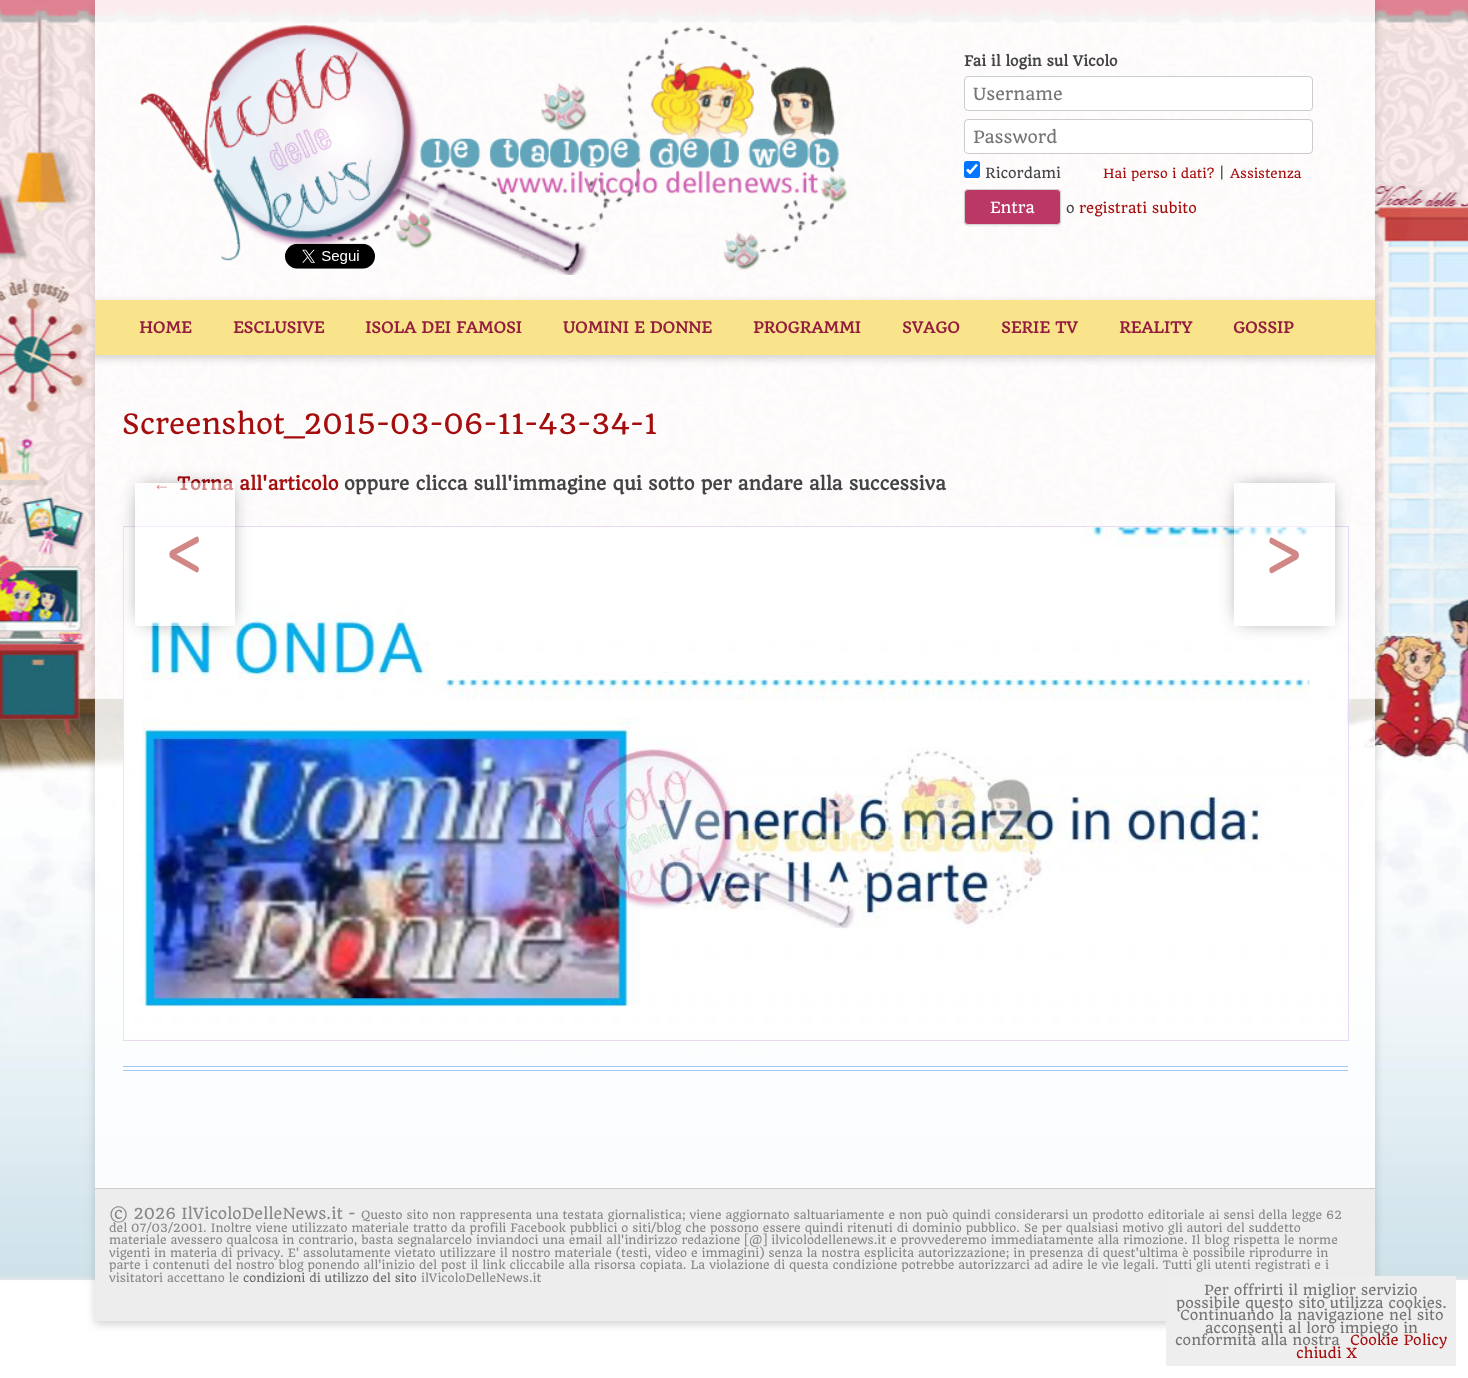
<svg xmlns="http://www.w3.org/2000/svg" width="1468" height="1378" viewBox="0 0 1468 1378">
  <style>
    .t1 { font: bold 13.75px Quando; fill: #444; }
    .t2 { font: 16.5px Quando; fill: #757575; }
    .t3 { font: 13.75px Quando; fill: #444; }
    .t4 { font: 12.5px Quando; fill: #a40e0e; }
    .t5 { font: 15px Quando; fill: #fff; }
    .t6 { font: 13.75px Quando; fill: #a40e0e; }
    .t7 { font: bold 15px Quando; fill: #941e3e; }
    .t8 { font: 27.5px Quando; fill: #a40e0e; }
    .t9 { font: bold 17.5px Liberation Serif; fill: #a40e0e; }
    .t10 { font: bold 17.5px Quando; fill: #a40e0e; }
    .t11 { font: bold 17.5px Quando; fill: #444; }
    .t12 { font: 62px Quando; fill: #d28787; }
    .t13 { font: 15px Quando; fill: #888; }
    .t14 { font: 11.25px Quando; fill: #888; }
    .t15 { font: 11.25px Quando; fill: #686868; }
    .t16 { font: 13.75px Quando; fill: #757575; }
  </style>
  <defs>
    <clipPath id="clip1"><path d="M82 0H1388V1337H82ZM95 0H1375V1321H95Z" clip-rule="evenodd"/></clipPath>
    <clipPath id="clip2"><rect x="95" y="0" width="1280" height="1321"/></clipPath>
    <clipPath id="clip3"><path d="M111 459H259V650H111ZM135 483H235V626H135Z" clip-rule="evenodd"/></clipPath>
    <clipPath id="clip4"><path d="M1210 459H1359V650H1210ZM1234 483H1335V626H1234Z" clip-rule="evenodd"/></clipPath>
  </defs>
  <rect width="100%" height="100%" fill="#fff"/>
  <image x="0" y="0" width="1468" height="1281" href="images/1.png"/>
  <g clip-path="url(#clip1)">
    <rect x="95" y="3" width="1280" height="1321" fill="#6464644d" filter="blur(4px)"/>
  </g>
  <rect x="95" y="0" width="1280" height="1188" fill="#ffffffd9"/>
  <image x="140" y="25" width="733" height="250" href="images/2.png"/>
  <text x="964" y="66" class="t1">Fai il login sul Vicolo</text>
  <rect x="964.5" y="76.5" width="348" height="34" rx="3.5" fill="#fff" stroke="#ccc"/>
  <text x="973" y="100" class="t2">Username</text>
  <rect x="964.5" y="119.5" width="348" height="34" rx="3.5" fill="#fff" stroke="#ccc"/>
  <text x="973" y="143" class="t2">Password</text>
  <rect x="964" y="161" width="16" height="17" rx="2.5" fill="#0075ff"/>
  <path d="M967 169.5L970 172.5L977 164.5" fill="none" stroke="#fff" stroke-width="2.6"/>
  <text x="985" y="178" class="t3">Ricordami</text>
  <text x="1103" y="178" class="t4">Hai perso i dati?</text>
  <text x="1219" y="178" class="t3">|</text>
  <text x="1230" y="178" class="t4">Assistenza</text>
  <rect x="964" y="190" width="97" height="36" rx="4" fill="#4040401a" filter="blur(1px)"/>
  <rect x="964.5" y="189.5" width="96" height="35" rx="3.5" fill="#ba3766" stroke="#d2d2d2"/>
  <text x="990" y="213" class="t5">Entra</text>
  <text x="1066" y="213" class="t3">o</text>
  <text x="1079" y="213" class="t6">registrati subito</text>
  <image x="285" y="243" width="90" height="26" href="images/3.png"/>
  <g clip-path="url(#clip2)">
    <rect x="91" y="303" width="1288" height="55" fill="#6464644d" filter="blur(4px)"/>
  </g>
  <rect x="95" y="300" width="1280" height="55" fill="#fae48b"/>
  <text x="139" y="333" class="t7">HOME</text>
  <text x="233" y="333" class="t7">ESCLUSIVE</text>
  <text x="365" y="333" class="t7">ISOLA DEI FAMOSI</text>
  <text x="563" y="333" class="t7">UOMINI E DONNE</text>
  <text x="753" y="333" class="t7">PROGRAMMI</text>
  <text x="902" y="333" class="t7">SVAGO</text>
  <text x="1001" y="333" class="t7">SERIE TV</text>
  <text x="1119" y="333" class="t7">REALITY</text>
  <text x="1233" y="333" class="t7">GOSSIP</text>
  <rect x="123" y="1066" width="1225" height="1" fill="#9fc9f1"/>
  <rect x="123" y="1070" width="1225" height="1" fill="#9fc9f1"/>
  <text x="122" y="434" class="t8">Screenshot_2015-03-06-11-43-34-1</text>
  <text x="153" y="490" class="t9">←</text>
  <text x="177" y="490" class="t10">Torna all'articolo</text>
  <text x="344" y="490" class="t11">oppure clicca sull'immagine qui sotto per andare alla successiva</text>
  <rect x="123.5" y="526.5" width="1225" height="514" fill="none" stroke="#e9d9f5"/>
  <image x="123" y="527" width="1225" height="513" href="images/4.png"/>
  <g clip-path="url(#clip3)">
    <rect x="141" y="489" width="88" height="131" fill="#00000080" filter="blur(9.5px)"/>
  </g>
  <rect x="135" y="483" width="100" height="143" fill="#ffffff80"/>
  <text x="163" y="577" class="t12">&lt;</text>
  <g clip-path="url(#clip4)">
    <rect x="1240" y="489" width="89" height="131" fill="#00000080" filter="blur(9.5px)"/>
  </g>
  <rect x="1234" y="483" width="101" height="64" fill="#ffffff80"/>
  <text x="1263" y="577" class="t12">&gt;</text>
  <rect x="95" y="1189" width="1280" height="132" fill="#ededed"/>
  <rect x="95" y="1188" width="1280" height="1" fill="#ccc"/>
  <text x="109" y="1219" class="t13">© 2026 IlVicoloDelleNews.it -</text>
  <text x="361" y="1219" class="t14">Questo sito non rappresenta una testata giornalistica; viene aggiornato saltuariamente e non può quindi considerarsi un prodotto editoriale ai sensi della legge 62</text>
  <text x="109" y="1232" class="t14">del 07/03/2001. Inoltre viene utilizzato materiale tratto da profili Facebook pubblici o siti/blog che possono essere quindi ritenuti di dominio pubblico. Se per qualsiasi motivo gli autori del suddetto</text>
  <text x="109" y="1244" class="t14">materiale avessero qualcosa in contrario, basta segnalarcelo inviandoci una email all'indirizzo redazione [@] ilvicolodellenews.it e provvederemo immediatamente alla rimozione. Il blog rispetta le norme</text>
  <text x="109" y="1257" class="t14">vigenti in materia di privacy. E' assolutamente vietato utilizzare il nostro materiale (testi, video e immagini) senza la nostra esplicita autorizzazione; in presenza di quest'ultima è possibile riprodurre in</text>
  <text x="109" y="1269" class="t14">parte i contenuti del nostro blog ponendo all'inizio del post il link cliccabile alla risorsa copiata. La violazione di questa condizione potrebbe autorizzarci ad adire le vie legali. Tutti gli utenti registrati e i</text>
  <text x="109" y="1282" class="t14">visitatori accettano le</text>
  <text x="243" y="1282" class="t15">condizioni di utilizzo del sito</text>
  <text x="421" y="1282" class="t14">ilVicoloDelleNews.it</text>
  <rect x="1166" y="1276" width="290" height="90" fill="#eee"/>
  <text x="1204" y="1295" class="t16">Per offrirti il miglior servizio</text>
  <text x="1176" y="1308" class="t16">possibile questo sito utilizza cookies.</text>
  <text x="1180" y="1320" class="t16">Continuando la navigazione nel sito</text>
  <text x="1205" y="1333" class="t16">acconsenti al loro impiego in</text>
  <text x="1175" y="1345" class="t16">conformità alla nostra</text>
  <text x="1350" y="1345" class="t6">Cookie Policy</text>
  <text x="1296" y="1358" class="t6">chiudi X</text>
</svg>
